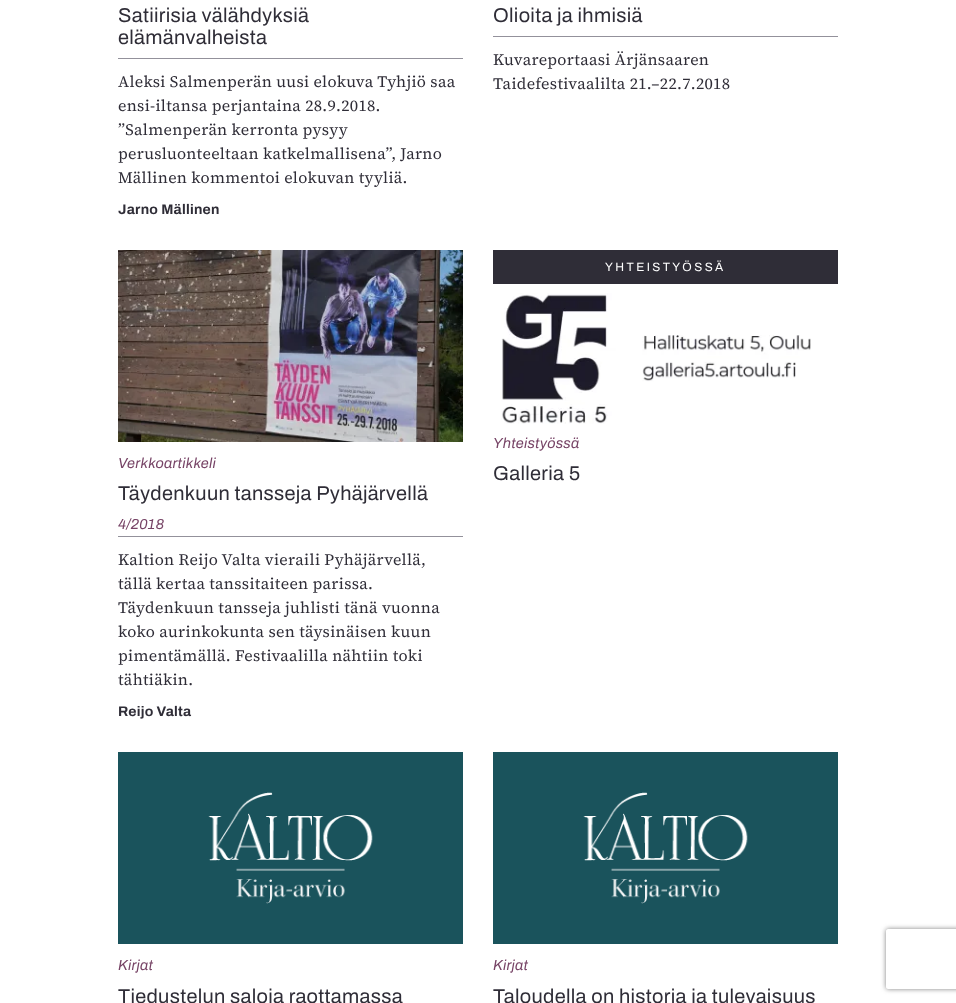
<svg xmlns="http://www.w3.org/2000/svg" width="956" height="1003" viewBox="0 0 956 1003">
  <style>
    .t1 { font: 20px Archivo; letter-spacing: 0.3px; fill: #2f2d37; }
    .t2 { font: 16px 'Source Serif 4'; letter-spacing: 0.3px; fill: #2f2d37; }
    .t3 { font: bold 14px Archivo; letter-spacing: 0.25px; fill: #2f2d37; }
    .t4 { font: 12px Archivo; letter-spacing: 2.4px; fill: #fff; }
    .t5 { font: italic 14.5px Archivo; letter-spacing: 0.25px; fill: #746; }
    .t6 { font: italic 14.5px Archivo; letter-spacing: 0.3px; fill: #746; }
  </style>
  <defs>
    <clipPath id="clip1"><path d="M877 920H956V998H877ZM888 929H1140C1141 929 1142 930 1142 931V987C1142 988 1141 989 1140 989H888C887 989 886 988 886 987V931C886 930 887 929 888 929Z" clip-rule="evenodd"/></clipPath>
  </defs>
  <rect width="100%" height="100%" fill="#fff"/>
  <rect x="118" y="58" width="345" height="1" fill="#93919b"/>
  <text x="118" y="22" class="t1">Satiirisia välähdyksiä</text>
  <text x="118" y="44" class="t1">elämänvalheista</text>
  <text x="118" y="87" class="t2">Aleksi Salmenperän uusi elokuva Tyhjiö saa</text>
  <text x="118" y="111" class="t2">ensi-iltansa perjantaina 28.9.2018.</text>
  <text x="118" y="135" class="t2">”Salmenperän kerronta pysyy</text>
  <text x="118" y="159" class="t2">perusluonteeltaan katkelmallisena”, Jarno</text>
  <text x="118" y="183" class="t2">Mällinen kommentoi elokuvan tyyliä.</text>
  <text x="118" y="214" class="t3">Jarno Mällinen</text>
  <rect x="493" y="36" width="345" height="1" fill="#93919b"/>
  <text x="493" y="22" class="t1">Olioita ja ihmisiä</text>
  <text x="493" y="65" class="t2">Kuvareportaasi Ärjänsaaren</text>
  <text x="493" y="89" class="t2">Taidefestivaalilta 21.–22.7.2018</text>
  <rect x="493" y="250" width="345" height="34" fill="#2f2d37"/>
  <text x="605" y="271" class="t4">YHTEISTYÖSSÄ</text>
  <image x="501" y="293" width="310" height="131" href="images/1.png"/>
  <text x="493" y="448" class="t5">Yhteistyössä</text>
  <text x="493" y="480" class="t1">Galleria 5</text>
  <image x="118" y="250" width="345" height="192" href="images/2.png"/>
  <rect x="118" y="536" width="345" height="1" fill="#93919b"/>
  <text x="118" y="468" class="t6">Verkkoartikkeli</text>
  <text x="118" y="500" class="t1">Täydenkuun tansseja Pyhäjärvellä</text>
  <text x="118" y="529" class="t5">4/2018</text>
  <text x="118" y="565" class="t2">Kaltion Reijo Valta vieraili Pyhäjärvellä,</text>
  <text x="118" y="589" class="t2">tällä kertaa tanssitaiteen parissa.</text>
  <text x="118" y="613" class="t2">Täydenkuun tansseja juhlisti tänä vuonna</text>
  <text x="118" y="637" class="t2">koko aurinkokunta sen täysinäisen kuun</text>
  <text x="118" y="661" class="t2">pimentämällä. Festivaalilla nähtiin toki</text>
  <text x="118" y="685" class="t2">tähtiäkin.</text>
  <text x="118" y="716" class="t3">Reijo Valta</text>
  <rect x="118" y="752" width="345" height="192" fill="#1a535c"/>
  <image x="208" y="792" width="165" height="112" href="images/3.png"/>
  <text x="118" y="970" class="t6">Kirjat</text>
  <text x="118" y="1003" class="t1">Tiedustelun saloja raottamassa</text>
  <rect x="493" y="752" width="345" height="192" fill="#1a535c"/>
  <image x="583" y="792" width="165" height="112" href="images/4.png"/>
  <text x="493" y="970" class="t6">Kirjat</text>
  <text x="493" y="1003" class="t1">Taloudella on historia ja tulevaisuus</text>
  <g clip-path="url(#clip1)">
    <rect x="886" y="929" width="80" height="60" rx="2" fill="#808080" filter="blur(2.5px)"/>
  </g>
</svg>
